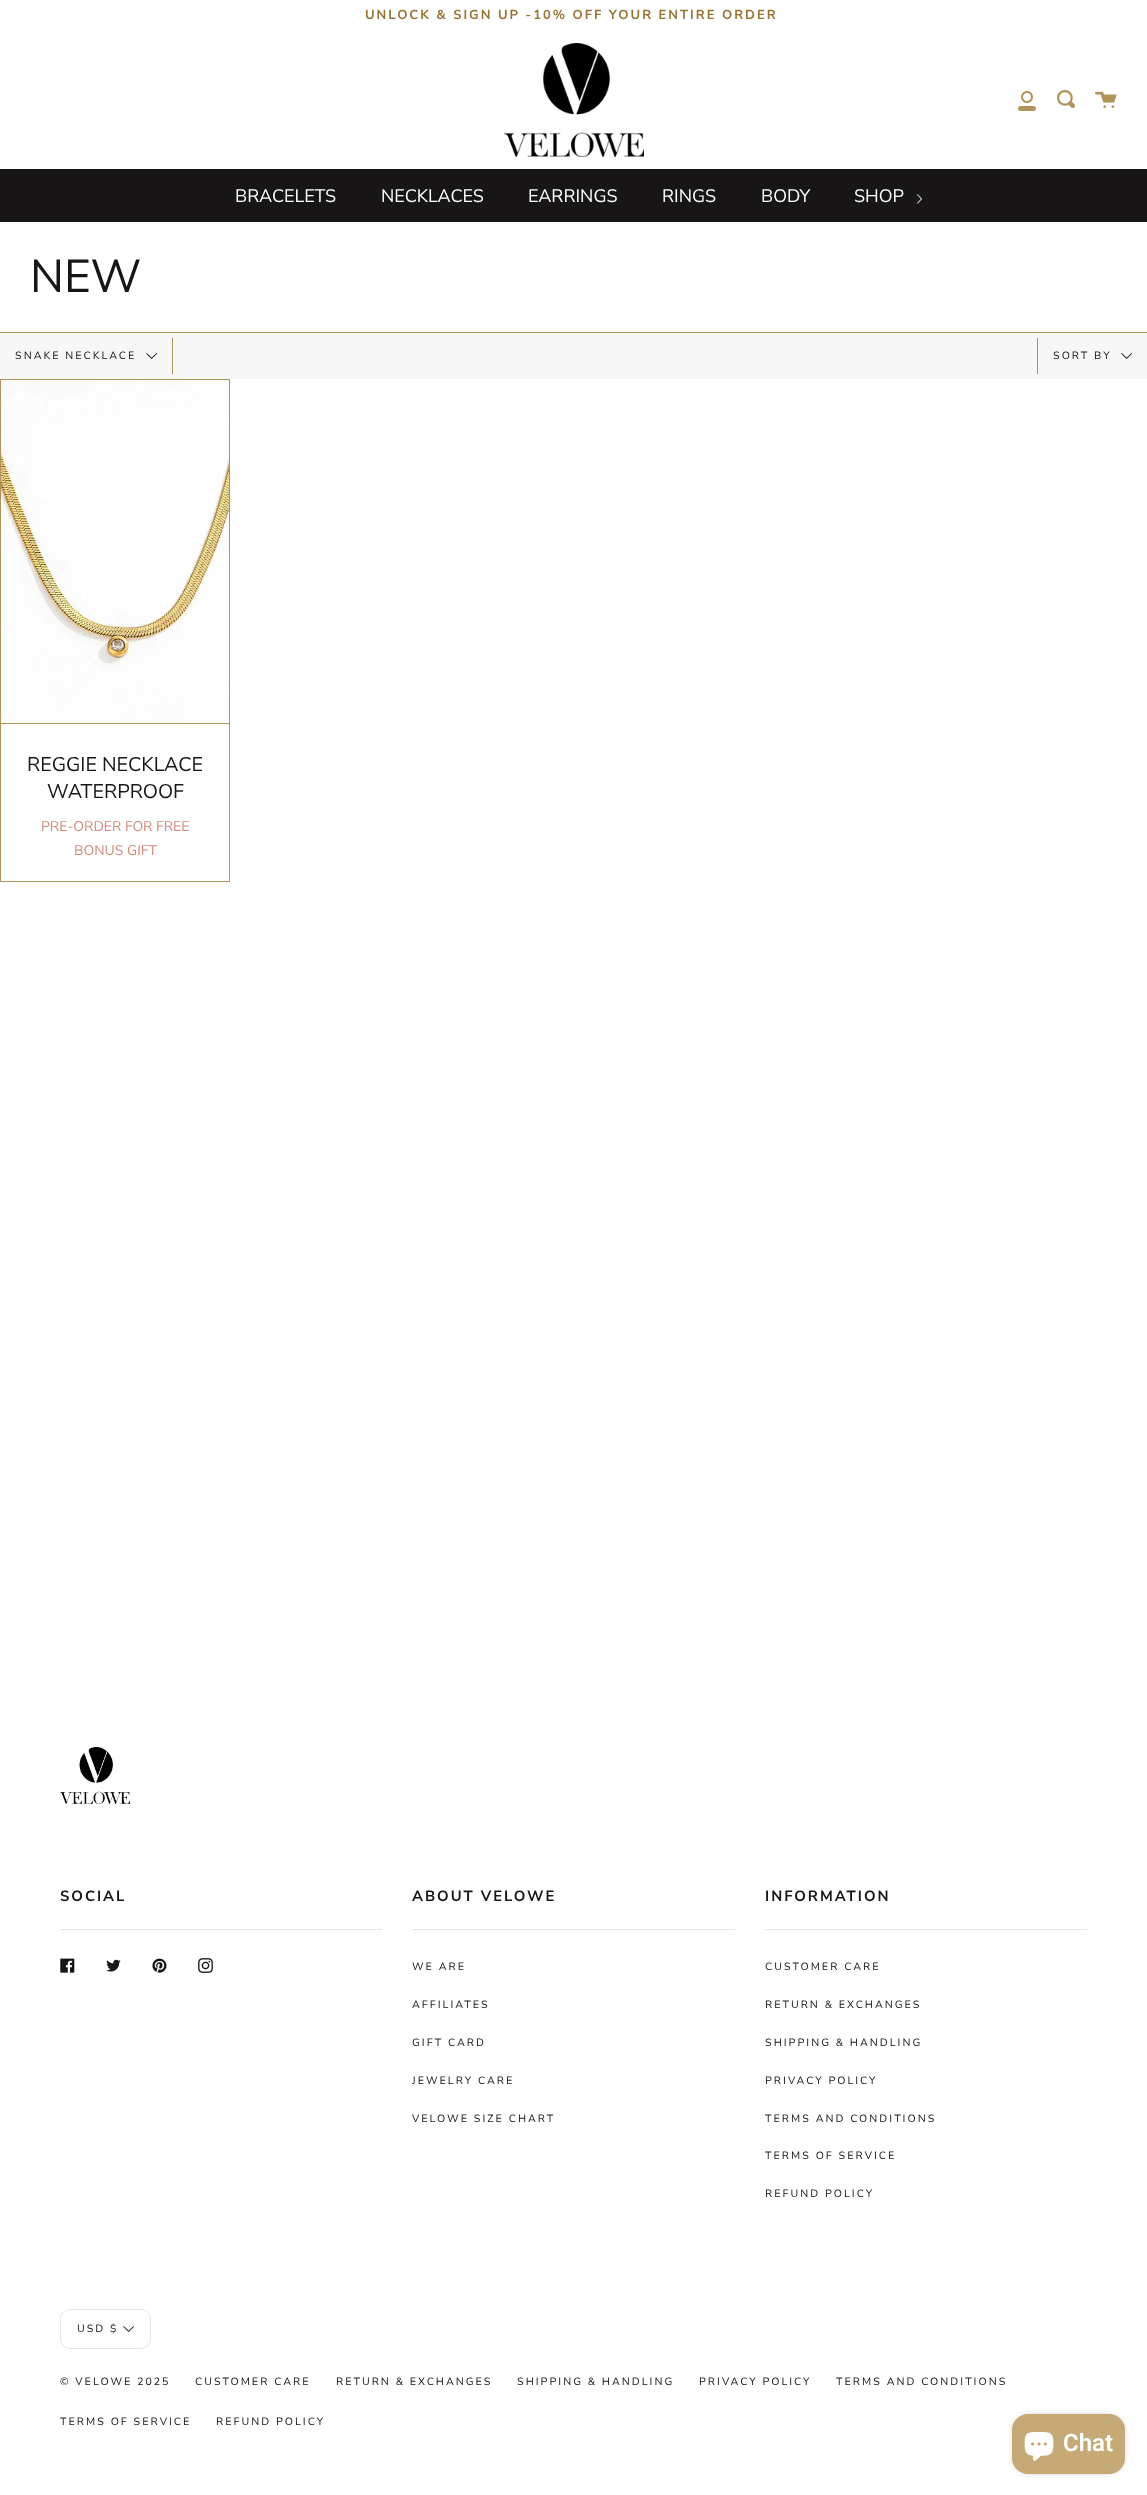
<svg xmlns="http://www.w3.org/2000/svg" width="1147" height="2495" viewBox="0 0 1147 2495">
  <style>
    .t1 { font: bold 13px Nunito Sans; letter-spacing: 2px; fill: #977432; }
    .t2 { font: 18px Nunito Sans; fill: #fff; }
    .t3 { font: 46px Nunito Sans; fill: #171515; }
    .t4 { font: 10.5px 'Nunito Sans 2'; letter-spacing: 2px; fill: #171515; }
    .t5 { font: 19.75px Nunito Sans; fill: #171515; }
    .t6 { font: 14px Nunito Sans; fill: #d28979; }
    .t7 { font: bold 14.75px Nunito Sans; letter-spacing: 2px; fill: #171515; }
    .t8 { font: 600 24px Roboto; fill: #fff; }
  </style>
  <rect width="100%" height="100%" fill="#fff"/>
  <text x="365" y="19" class="t1">UNLOCK &amp; SIGN UP -10% OFF YOUR ENTIRE ORDER</text>
  <image x="504" y="43" width="140" height="114" href="images/1.png"/>
  <image x="1018" y="91" width="18" height="20" href="images/2.png"/>
  <image x="1057" y="90" width="18" height="18" href="images/3.png"/>
  <image x="1095" y="91" width="22" height="17" href="images/4.png"/>
  <rect x="0" y="169" width="1147" height="53" fill="#171515"/>
  <text x="235" y="202" class="t2">BRACELETS</text>
  <text x="381" y="202" class="t2">NECKLACES</text>
  <text x="528" y="202" class="t2">EARRINGS</text>
  <text x="662" y="202" class="t2">RINGS</text>
  <text x="761" y="202" class="t2">BODY</text>
  <text x="854" y="202" class="t2">SHOP</text>
  <image x="917" y="194" width="5" height="10" href="images/5.png"/>
  <text x="30" y="292" class="t3">NEW</text>
  <rect x="0" y="333" width="1147" height="46" fill="#f7f7f7"/>
  <rect x="0" y="332" width="1147" height="1" fill="#b1945c"/>
  <rect x="172" y="338" width="1" height="36" fill="#b1945c"/>
  <text x="15" y="359" class="t4">SNAKE NECKLACE</text>
  <image x="146" y="353" width="11" height="6" href="images/6.png"/>
  <rect x="1037" y="338" width="1" height="36" fill="#b1945c"/>
  <text x="1053" y="359" class="t4">SORT BY</text>
  <image x="1121" y="353" width="11" height="6" href="images/6.png"/>
  <rect x="0" y="379" width="1" height="503" fill="#b1945c"/>
  <rect x="1" y="379" width="229" height="1" fill="#b1945c"/>
  <rect x="229" y="379" width="1" height="503" fill="#b1945c"/>
  <rect x="1" y="881" width="229" height="1" fill="#b1945c"/>
  <rect x="1" y="723" width="228" height="1" fill="#b1945c"/>
  <image x="1" y="380" width="228" height="343" href="images/7.png"/>
  <text x="27" y="771" class="t5">REGGIE NECKLACE</text>
  <text x="47" y="798" class="t5">WATERPROOF</text>
  <text x="41" y="831" class="t6">PRE-ORDER FOR FREE</text>
  <text x="74" y="855" class="t6">BONUS GIFT</text>
  <image x="60" y="1747" width="70" height="57" href="images/8.png"/>
  <text x="60" y="1901" class="t7">SOCIAL</text>
  <rect x="60" y="1929" width="322" height="1" fill="#e6e6e6"/>
  <image x="60" y="1958" width="15" height="15" href="images/9.png"/>
  <image x="106" y="1959" width="15" height="13" href="images/10.png"/>
  <image x="152" y="1958" width="15" height="15" href="images/11.png"/>
  <image x="198" y="1958" width="15" height="15" href="images/12.png"/>
  <text x="412" y="1901" class="t7">ABOUT VELOWE</text>
  <rect x="412" y="1929" width="323" height="1" fill="#e6e6e6"/>
  <text x="412" y="1970" class="t4">WE ARE</text>
  <text x="412" y="2008" class="t4">AFFILIATES</text>
  <text x="412" y="2046" class="t4">GIFT CARD</text>
  <text x="412" y="2084" class="t4">JEWELRY CARE</text>
  <text x="412" y="2122" class="t4">VELOWE SIZE CHART</text>
  <text x="765" y="1901" class="t7">INFORMATION</text>
  <rect x="765" y="1929" width="322" height="1" fill="#e6e6e6"/>
  <text x="765" y="1970" class="t4">CUSTOMER CARE</text>
  <text x="765" y="2008" class="t4">RETURN &amp; EXCHANGES</text>
  <text x="765" y="2046" class="t4">SHIPPING &amp; HANDLING</text>
  <text x="765" y="2084" class="t4">PRIVACY POLICY</text>
  <text x="765" y="2122" class="t4">TERMS AND CONDITIONS</text>
  <text x="765" y="2159" class="t4">TERMS OF SERVICE</text>
  <text x="765" y="2197" class="t4">REFUND POLICY</text>
  <rect x="60.5" y="2309.5" width="90" height="39" rx="9.5" fill="none" stroke="#e6e6e6"/>
  <text x="77" y="2332" class="t4">USD $</text>
  <image x="123" y="2326" width="11" height="6" href="images/13.png"/>
  <text x="60" y="2385" class="t4">© VELOWE 2025</text>
  <text x="195" y="2385" class="t4">CUSTOMER CARE</text>
  <text x="336" y="2385" class="t4">RETURN &amp; EXCHANGES</text>
  <text x="517" y="2385" class="t4">SHIPPING &amp; HANDLING</text>
  <text x="699" y="2385" class="t4">PRIVACY POLICY</text>
  <text x="836" y="2385" class="t4">TERMS AND CONDITIONS</text>
  <text x="60" y="2425" class="t4">TERMS OF SERVICE</text>
  <text x="216" y="2425" class="t4">REFUND POLICY</text>
  <rect x="1012" y="2414" width="113" height="60" rx="16" fill="#00000026" filter="blur(2.5px)"/>
  <rect x="1012" y="2414" width="113" height="60" rx="16" fill="#c5aa76"/>
  <image x="1024" y="2432" width="30" height="29" href="images/14.png"/>
  <text x="1063" y="2451" class="t8">Chat</text>
</svg>
